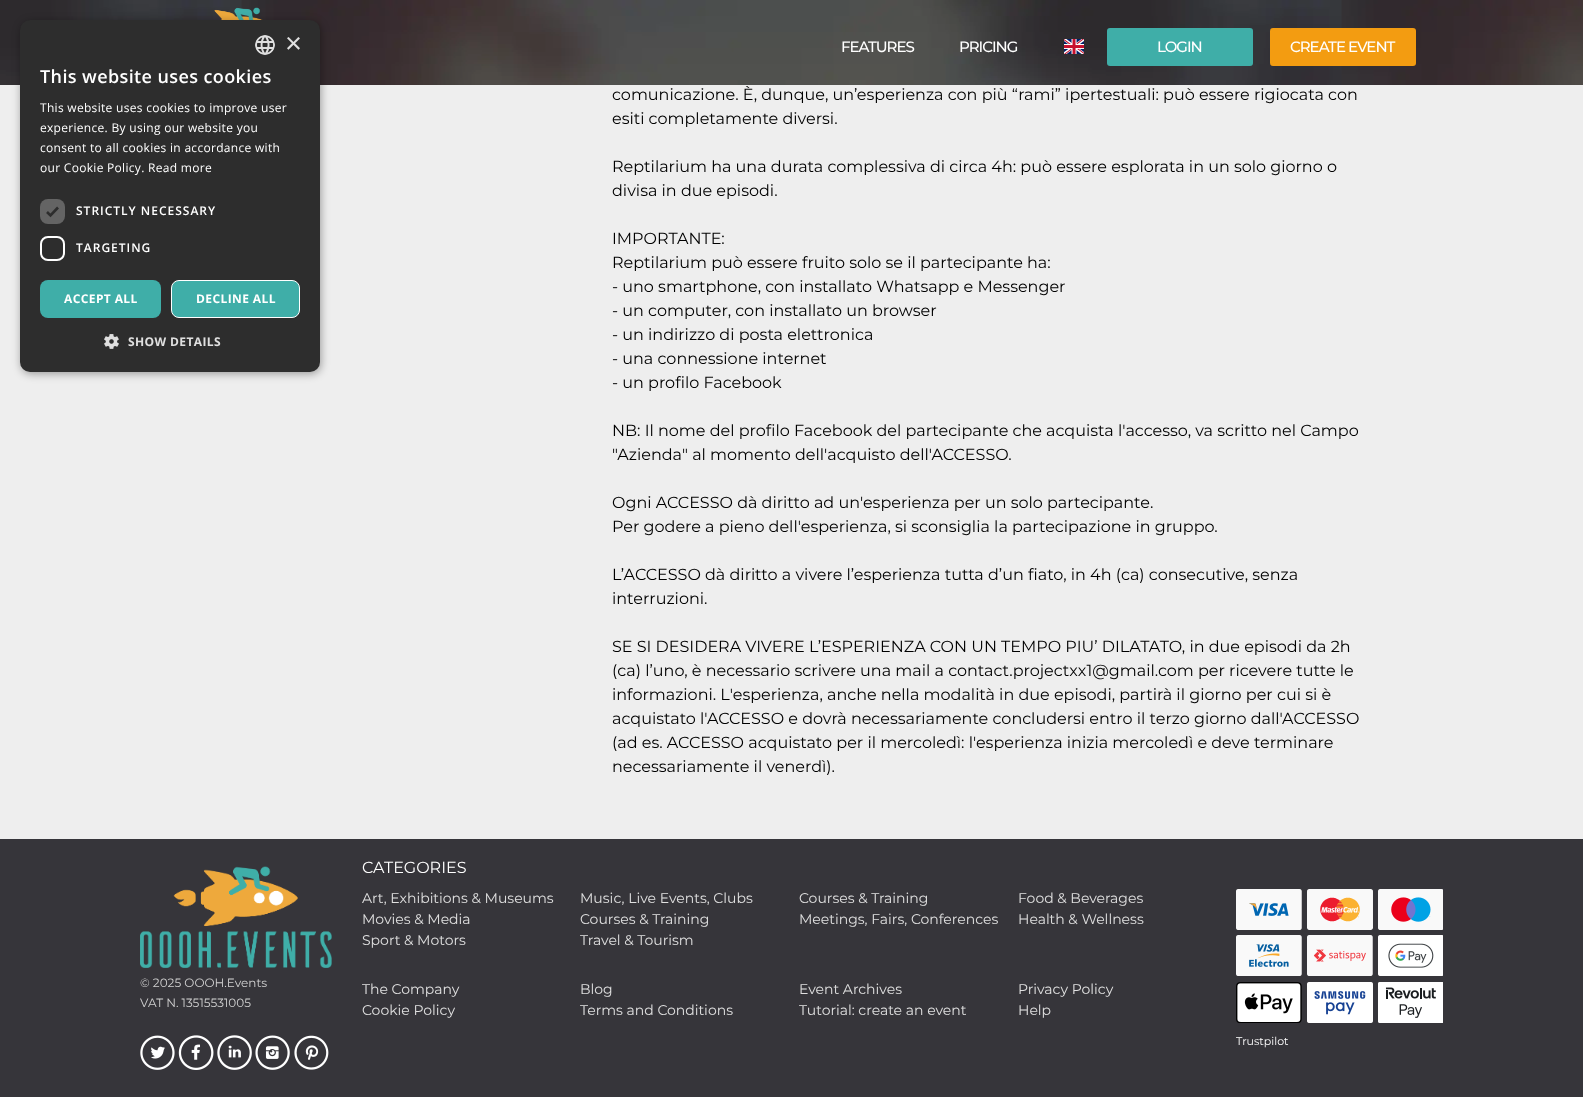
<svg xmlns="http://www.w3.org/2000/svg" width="1583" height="1097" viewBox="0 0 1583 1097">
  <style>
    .t1 { font: 29px Liberation Sans; fill: #e0e0e0; }
    .t2 { font: 600 18px Open Sans; letter-spacing: 0.4px; fill: #fff; }
    .t3 { font: 12px Open Sans; letter-spacing: 0.3px; fill: #fff; }
    .t4 { font: 600 12px Open Sans; letter-spacing: 1px; fill: #fff; }
    .t5 { font: bold 12px Open Sans; letter-spacing: 0.4px; fill: #fff; }
    .t6 { font: bold 12px Open Sans; letter-spacing: 0.4px; fill: #e0e0e0; }
    .t7 { font: 500 15px Montserrat; letter-spacing: -1px; fill: #fff; }
    .t8 { font: 16px Montserrat; fill: #000; }
    .t9 { font: 12px Montserrat; fill: #d1d1d1; }
    .t10 { font: 16px Montserrat; fill: #fff; }
    .t11 { font: 14px Montserrat; fill: #e0e0e0; }
    .t12 { font: 11px Montserrat; fill: #fff; }
  </style>
  <rect width="100%" height="100%" fill="#eee"/>
  <image x="0" y="0" width="1583" height="85" href="images/3.png"/>
  <image x="214" y="7" width="49" height="13" href="images/4.png"/>
  <rect x="21" y="22" width="300" height="352" rx="10" fill="#00000059" filter="blur(4px)"/>
  <rect x="20" y="20" width="300" height="352" rx="10" fill="#2d2d2d"/>
  <image x="255" y="35" width="20" height="20" href="images/1.png"/>
  <text x="285" y="53" class="t1">×</text>
  <text x="40" y="83" class="t2">This website uses cookies</text>
  <text x="40" y="112" class="t3">This website uses cookies to improve user</text>
  <text x="40" y="132" class="t3">experience. By using our website you</text>
  <text x="40" y="152" class="t3">consent to all cookies in accordance with</text>
  <text x="40" y="172" class="t3">our Cookie Policy. Read more</text>
  <rect x="40" y="199" width="25" height="25" rx="8" fill="#646464"/>
  <path d="M47 212L50.5 215.5L58 207.5" fill="none" stroke="#2d2d2d" stroke-width="2.6"/>
  <text x="76" y="215" class="t4">STRICTLY NECESSARY</text>
  <rect x="41" y="237" width="23" height="23" rx="7" fill="none" stroke="#fff" stroke-width="2"/>
  <text x="76" y="252" class="t4">TARGETING</text>
  <rect x="40" y="280" width="121" height="38" rx="8" fill="#3faea8"/>
  <text x="64" y="303" class="t5">ACCEPT ALL</text>
  <rect x="171.5" y="280.5" width="128" height="37" rx="7.5" fill="#3faea8" stroke="#fff"/>
  <text x="196" y="303" class="t5">DECLINE ALL</text>
  <image x="104" y="334" width="15" height="15" href="images/2.png"/>
  <text x="128" y="346" class="t6">SHOW DETAILS</text>
  <text x="841" y="52" class="t7">FEATURES</text>
  <text x="959" y="52" class="t7">PRICING</text>
  <image x="1064" y="39" width="20" height="15" href="images/5.png"/>
  <rect x="1107" y="28" width="146" height="38" rx="3" fill="#3faea8"/>
  <text x="1157" y="52" class="t7">LOGIN</text>
  <rect x="1270" y="28" width="146" height="38" rx="3" fill="#f39c11"/>
  <text x="1290" y="52" class="t7">CREATE EVENT</text>
  <text x="612" y="100" class="t8">comunicazione. È, dunque, un’esperienza con più “rami” ipertestuali: può essere rigiocata con</text>
  <text x="612" y="124" class="t8">esiti completamente diversi.</text>
  <text x="612" y="172" class="t8">Reptilarium ha una durata complessiva di circa 4h: può essere esplorata in un solo giorno o</text>
  <text x="612" y="196" class="t8">divisa in due episodi.</text>
  <text x="612" y="244" class="t8">IMPORTANTE:</text>
  <text x="612" y="268" class="t8">Reptilarium può essere fruito solo se il partecipante ha:</text>
  <text x="612" y="292" class="t8">- uno smartphone, con installato Whatsapp e Messenger</text>
  <text x="612" y="316" class="t8">- un computer, con installato un browser</text>
  <text x="612" y="340" class="t8">- un indirizzo di posta elettronica</text>
  <text x="612" y="364" class="t8">- una connessione internet</text>
  <text x="612" y="388" class="t8">- un profilo Facebook</text>
  <text x="612" y="436" class="t8">NB: Il nome del profilo Facebook del partecipante che acquista l'accesso, va scritto nel Campo</text>
  <text x="612" y="460" class="t8">"Azienda" al momento dell'acquisto dell'ACCESSO.</text>
  <text x="612" y="508" class="t8">Ogni ACCESSO dà diritto ad un'esperienza per un solo partecipante.</text>
  <text x="612" y="532" class="t8">Per godere a pieno dell'esperienza, si sconsiglia la partecipazione in gruppo.</text>
  <text x="612" y="580" class="t8">L’ACCESSO dà diritto a vivere l’esperienza tutta d’un fiato, in 4h (ca) consecutive, senza</text>
  <text x="612" y="604" class="t8">interruzioni.</text>
  <text x="612" y="652" class="t8">SE SI DESIDERA VIVERE L’ESPERIENZA CON UN TEMPO PIU’ DILATATO, in due episodi da 2h</text>
  <text x="612" y="676" class="t8">(ca) l’uno, è necessario scrivere una mail a contact.projectxx1@gmail.com per ricevere tutte le</text>
  <text x="612" y="700" class="t8">informazioni. L'esperienza, anche nella modalità in due episodi, partirà il giorno per cui si è</text>
  <text x="612" y="724" class="t8">acquistato l'ACCESSO e dovrà necessariamente concludersi entro il terzo giorno dall'ACCESSO</text>
  <text x="612" y="748" class="t8">(ad es. ACCESSO acquistato per il mercoledì: l'esperienza inizia mercoledì e deve terminare</text>
  <text x="612" y="772" class="t8">necessariamente il venerdì).</text>
  <rect x="0" y="839" width="1583" height="258" fill="#36353a"/>
  <image x="140" y="866" width="192" height="102" href="images/6.png"/>
  <text x="140" y="987" class="t9">© 2025 OOOH.Events</text>
  <text x="140" y="1007" class="t9">VAT N. 13515531005</text>
  <image x="140" y="1035" width="35" height="35" href="images/7.png"/>
  <image x="178" y="1035" width="36" height="35" href="images/8.png"/>
  <image x="217" y="1035" width="35" height="35" href="images/9.png"/>
  <image x="255" y="1035" width="35" height="35" href="images/10.png"/>
  <image x="294" y="1035" width="35" height="35" href="images/11.png"/>
  <text x="362" y="873" class="t10">CATEGORIES</text>
  <text x="362" y="903" class="t11">Art, Exhibitions &amp; Museums</text>
  <text x="580" y="903" class="t11">Music, Live Events, Clubs</text>
  <text x="799" y="903" class="t11">Courses &amp; Training</text>
  <text x="1018" y="903" class="t11">Food &amp; Beverages</text>
  <text x="362" y="924" class="t11">Movies &amp; Media</text>
  <text x="580" y="924" class="t11">Courses &amp; Training</text>
  <text x="799" y="924" class="t11">Meetings, Fairs, Conferences</text>
  <text x="1018" y="924" class="t11">Health &amp; Wellness</text>
  <text x="362" y="945" class="t11">Sport &amp; Motors</text>
  <text x="580" y="945" class="t11">Travel &amp; Tourism</text>
  <text x="362" y="994" class="t11">The Company</text>
  <text x="580" y="994" class="t11">Blog</text>
  <text x="799" y="994" class="t11">Event Archives</text>
  <text x="1018" y="994" class="t11">Privacy Policy</text>
  <text x="362" y="1015" class="t11">Cookie Policy</text>
  <text x="580" y="1015" class="t11">Terms and Conditions</text>
  <text x="799" y="1015" class="t11">Tutorial: create an event</text>
  <text x="1018" y="1015" class="t11">Help</text>
  <image x="1236" y="889" width="66" height="41" href="images/12.png"/>
  <image x="1307" y="889" width="66" height="41" href="images/13.png"/>
  <image x="1378" y="889" width="65" height="41" href="images/14.png"/>
  <image x="1236" y="935" width="66" height="41" href="images/15.png"/>
  <image x="1307" y="935" width="66" height="41" href="images/16.png"/>
  <image x="1378" y="935" width="65" height="41" href="images/17.png"/>
  <image x="1236" y="982" width="66" height="41" href="images/18.png"/>
  <image x="1307" y="982" width="66" height="41" href="images/19.png"/>
  <image x="1378" y="982" width="65" height="41" href="images/20.png"/>
  <text x="1236" y="1045" class="t12">Trustpilot</text>
</svg>
